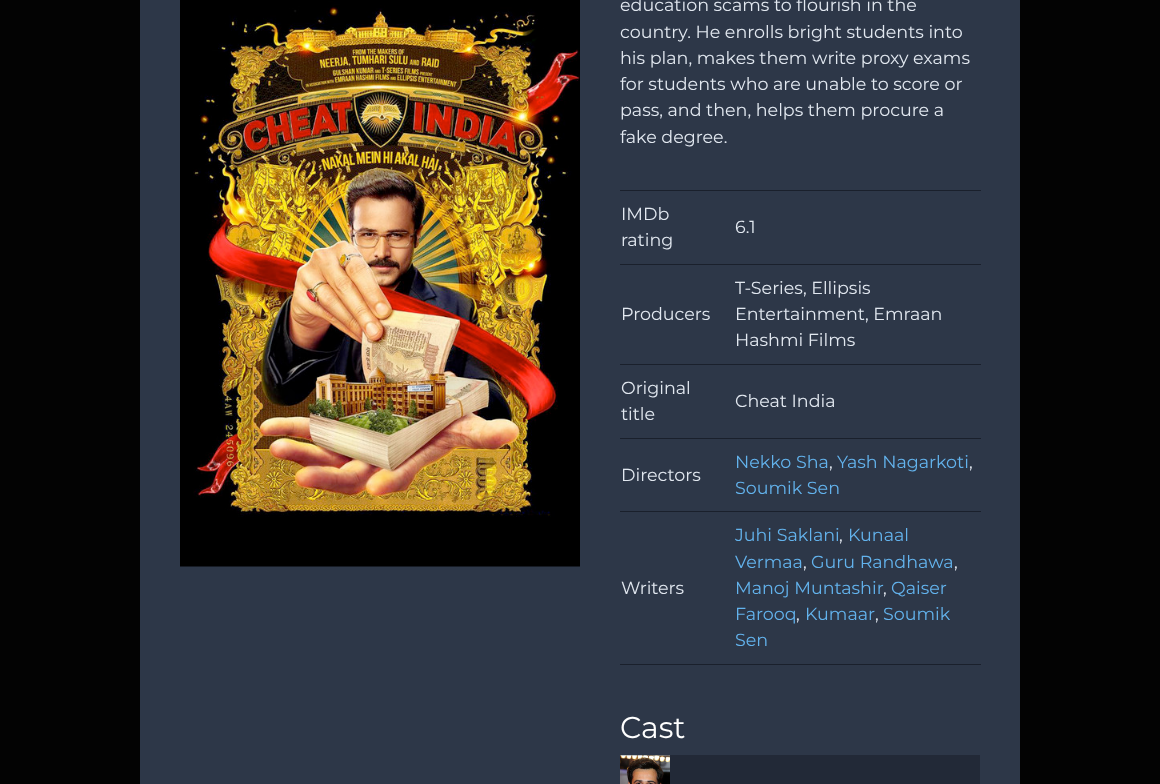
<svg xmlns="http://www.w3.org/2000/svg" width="1160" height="784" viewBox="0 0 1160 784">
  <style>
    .t1 { font: 17.5px Montserrat; fill: #e2e8f0; }
    .t2 { font: 17.5px Montserrat; fill: #63b3ed; }
    .t3 { font: 30px Montserrat; fill: #fff; }
  </style>
  <rect width="100%" height="100%" fill="#030303"/>
  <rect x="140" y="0" width="880" height="784" fill="#2d3748"/>
  <image x="180" y="0" width="400" height="567" href="images/1.png"/>
  <text x="620" y="11" class="t1">education scams to flourish in the</text>
  <text x="620" y="38" class="t1">country. He enrolls bright students into</text>
  <text x="620" y="64" class="t1">his plan, makes them write proxy exams</text>
  <text x="620" y="90" class="t1">for students who are unable to score or</text>
  <text x="620" y="116" class="t1">pass, and then, helps them procure a</text>
  <text x="620" y="143" class="t1">fake degree.</text>
  <rect x="620" y="190" width="361" height="1" fill="#1a202c"/>
  <rect x="620" y="264" width="361" height="1" fill="#1a202c"/>
  <text x="621" y="220" class="t1">IMDb</text>
  <text x="621" y="246" class="t1">rating</text>
  <text x="735" y="233" class="t1">6.1</text>
  <rect x="620" y="364" width="361" height="1" fill="#1a202c"/>
  <text x="621" y="320" class="t1">Producers</text>
  <text x="735" y="294" class="t1">T-Series, Ellipsis</text>
  <text x="735" y="320" class="t1">Entertainment, Emraan</text>
  <text x="735" y="346" class="t1">Hashmi Films</text>
  <rect x="620" y="438" width="361" height="1" fill="#1a202c"/>
  <text x="621" y="394" class="t1">Original</text>
  <text x="621" y="420" class="t1">title</text>
  <text x="735" y="407" class="t1">Cheat India</text>
  <rect x="620" y="511" width="361" height="1" fill="#1a202c"/>
  <text x="621" y="481" class="t1">Directors</text>
  <text x="735" y="468" class="t2">Nekko Sha</text>
  <text x="829" y="468" class="t1">,</text>
  <text x="837" y="468" class="t2">Yash Nagarkoti</text>
  <text x="969" y="468" class="t1">,</text>
  <text x="735" y="494" class="t2">Soumik Sen</text>
  <rect x="620" y="664" width="361" height="1" fill="#1a202c"/>
  <text x="621" y="594" class="t1">Writers</text>
  <text x="735" y="541" class="t2">Juhi Saklani</text>
  <text x="839" y="541" class="t1">,</text>
  <text x="848" y="541" class="t2">Kunaal</text>
  <text x="735" y="568" class="t2">Vermaa</text>
  <text x="803" y="568" class="t1">,</text>
  <text x="811" y="568" class="t2">Guru Randhawa</text>
  <text x="954" y="568" class="t1">,</text>
  <text x="735" y="594" class="t2">Manoj Muntashir</text>
  <text x="883" y="594" class="t1">,</text>
  <text x="891" y="594" class="t2">Qaiser</text>
  <text x="735" y="620" class="t2">Farooq</text>
  <text x="796" y="620" class="t1">,</text>
  <text x="805" y="620" class="t2">Kumaar</text>
  <text x="875" y="620" class="t1">,</text>
  <text x="883" y="620" class="t2">Soumik</text>
  <text x="735" y="646" class="t2">Sen</text>
  <text x="620" y="738" class="t3">Cast</text>
  <rect x="620" y="755" width="360" height="29" fill="#222937"/>
  <image x="620" y="755" width="50" height="29" href="images/2.png"/>
</svg>
